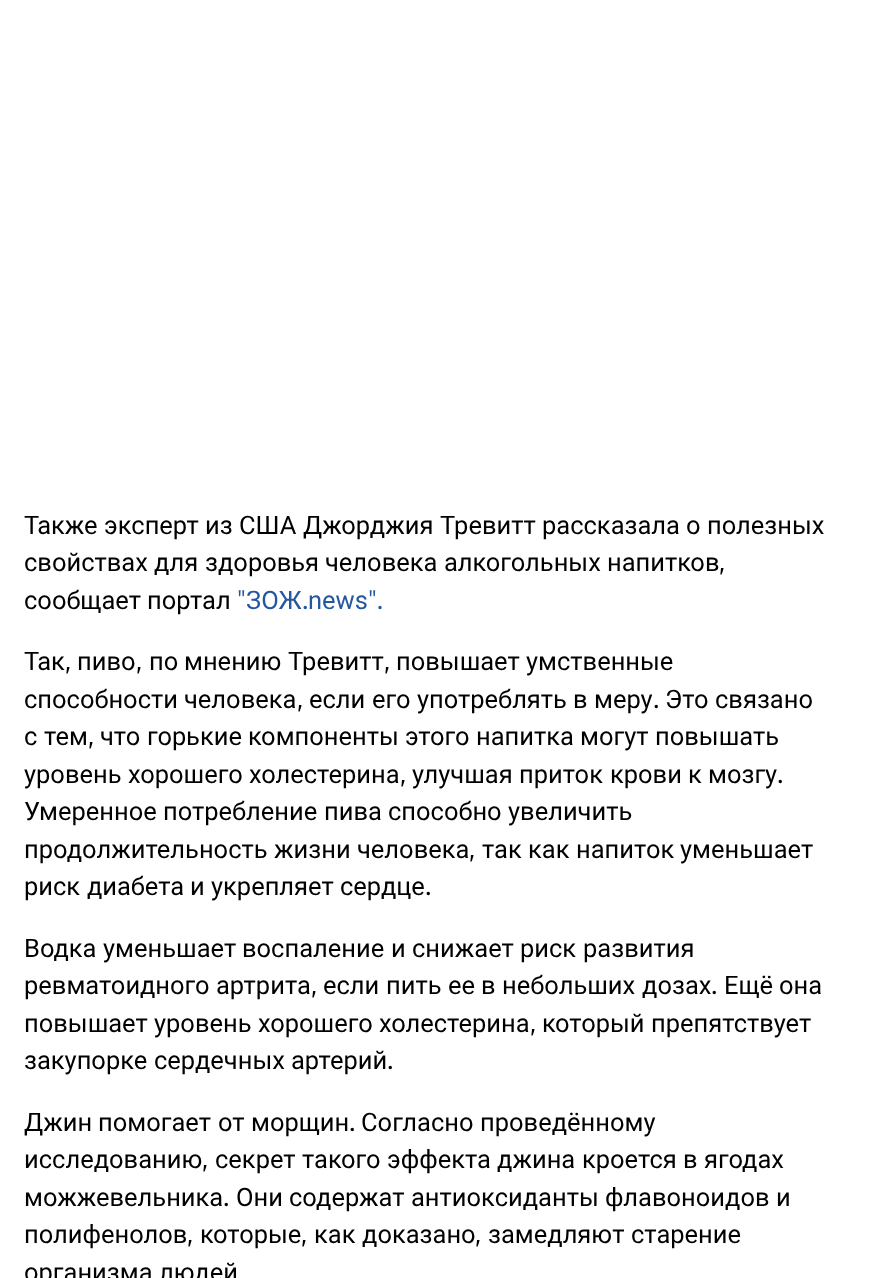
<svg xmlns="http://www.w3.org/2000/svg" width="872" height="1278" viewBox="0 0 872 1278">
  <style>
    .t1 { font: 25.5px Roboto; fill: #000; }
    .t2 { font: 25.5px Oxygen; fill: #000; }
    .t3 { font: 25.5px Oxygen; fill: #24579d; }
    .t4 { font: 25.5px Roboto; fill: #24579d; }
  </style>
  <rect width="100%" height="100%" fill="#fff"/>
  <text x="24" y="534" class="t1">Также</text>
  <text x="104" y="534" class="t1">эксперт</text>
  <text x="205" y="534" class="t1">из</text>
  <text x="239" y="534" class="t1">США</text>
  <text x="303" y="534" class="t1">Джорджия</text>
  <text x="440" y="534" class="t1">Тревитт</text>
  <text x="542" y="534" class="t1">рассказала</text>
  <text x="686" y="534" class="t1">о</text>
  <text x="707" y="534" class="t1">полезных</text>
  <text x="24" y="571" class="t1">свойствах</text>
  <text x="154" y="571" class="t1">для</text>
  <text x="205" y="571" class="t1">здоровья</text>
  <text x="325" y="571" class="t1">человека</text>
  <text x="444" y="571" class="t1">алкогольных</text>
  <text x="607" y="571" class="t1">напитков</text>
  <text x="719" y="571" class="t2">,</text>
  <text x="24" y="609" class="t1">сообщает</text>
  <text x="147" y="609" class="t1">портал</text>
  <text x="237" y="609" class="t3">"</text>
  <text x="246" y="609" class="t4">ЗОЖ</text>
  <text x="302" y="609" class="t3">.</text>
  <text x="308" y="609" class="t4">news</text>
  <text x="368" y="609" class="t3">".</text>
  <text x="24" y="670" class="t1">Так</text>
  <text x="65" y="670" class="t2">,</text>
  <text x="77" y="670" class="t1">пиво</text>
  <text x="136" y="670" class="t2">,</text>
  <text x="149" y="670" class="t1">по</text>
  <text x="184" y="670" class="t1">мнению</text>
  <text x="288" y="670" class="t1">Тревитт</text>
  <text x="384" y="670" class="t2">,</text>
  <text x="396" y="670" class="t1">повышает</text>
  <text x="526" y="670" class="t1">умственные</text>
  <text x="24" y="708" class="t1">способности</text>
  <text x="184" y="708" class="t1">человека</text>
  <text x="297" y="708" class="t2">,</text>
  <text x="309" y="708" class="t1">если</text>
  <text x="372" y="708" class="t1">его</text>
  <text x="417" y="708" class="t1">употреблять</text>
  <text x="573" y="708" class="t1">в</text>
  <text x="594" y="708" class="t1">меру</text>
  <text x="653" y="708" class="t2">.</text>
  <text x="665" y="708" class="t1">Это</text>
  <text x="715" y="708" class="t1">связано</text>
  <text x="24" y="745" class="t1">с</text>
  <text x="44" y="745" class="t1">тем</text>
  <text x="88" y="745" class="t2">,</text>
  <text x="100" y="745" class="t1">что</text>
  <text x="147" y="745" class="t1">горькие</text>
  <text x="248" y="745" class="t1">компоненты</text>
  <text x="405" y="745" class="t1">этого</text>
  <text x="476" y="745" class="t1">напитка</text>
  <text x="580" y="745" class="t1">могут</text>
  <text x="655" y="745" class="t1">повышать</text>
  <text x="24" y="783" class="t1">уровень</text>
  <text x="128" y="783" class="t1">хорошего</text>
  <text x="249" y="783" class="t1">холестерина</text>
  <text x="400" y="783" class="t2">,</text>
  <text x="412" y="783" class="t1">улучшая</text>
  <text x="519" y="783" class="t1">приток</text>
  <text x="610" y="783" class="t1">крови</text>
  <text x="688" y="783" class="t1">к</text>
  <text x="708" y="783" class="t1">мозгу</text>
  <text x="777" y="783" class="t2">.</text>
  <text x="24" y="820" class="t1">Умеренное</text>
  <text x="163" y="820" class="t1">потребление</text>
  <text x="324" y="820" class="t1">пива</text>
  <text x="388" y="820" class="t1">способно</text>
  <text x="508" y="820" class="t1">увеличить</text>
  <text x="24" y="858" class="t1">продолжительность</text>
  <text x="274" y="858" class="t1">жизни</text>
  <text x="357" y="858" class="t1">человека</text>
  <text x="469" y="858" class="t2">,</text>
  <text x="482" y="858" class="t1">так</text>
  <text x="528" y="858" class="t1">как</text>
  <text x="576" y="858" class="t1">напиток</text>
  <text x="680" y="858" class="t1">уменьшает</text>
  <text x="24" y="895" class="t1">риск</text>
  <text x="87" y="895" class="t1">диабета</text>
  <text x="190" y="895" class="t1">и</text>
  <text x="211" y="895" class="t1">укрепляет</text>
  <text x="340" y="895" class="t1">сердце</text>
  <text x="425" y="895" class="t2">.</text>
  <text x="24" y="957" class="t1">Водка</text>
  <text x="103" y="957" class="t1">уменьшает</text>
  <text x="242" y="957" class="t1">воспаление</text>
  <text x="391" y="957" class="t1">и</text>
  <text x="412" y="957" class="t1">снижает</text>
  <text x="520" y="957" class="t1">риск</text>
  <text x="583" y="957" class="t1">развития</text>
  <text x="24" y="994" class="t1">ревматоидного</text>
  <text x="216" y="994" class="t1">артрита</text>
  <text x="311" y="994" class="t2">,</text>
  <text x="323" y="994" class="t1">если</text>
  <text x="386" y="994" class="t1">пить</text>
  <text x="448" y="994" class="t1">ее</text>
  <text x="481" y="994" class="t1">в</text>
  <text x="502" y="994" class="t1">небольших</text>
  <text x="642" y="994" class="t1">дозах</text>
  <text x="711" y="994" class="t2">.</text>
  <text x="724" y="994" class="t1">Ещё</text>
  <text x="779" y="994" class="t1">она</text>
  <text x="24" y="1032" class="t1">повышает</text>
  <text x="154" y="1032" class="t1">уровень</text>
  <text x="258" y="1032" class="t1">хорошего</text>
  <text x="379" y="1032" class="t1">холестерина</text>
  <text x="530" y="1032" class="t2">,</text>
  <text x="542" y="1032" class="t1">который</text>
  <text x="651" y="1032" class="t1">препятствует</text>
  <text x="24" y="1069" class="t1">закупорке</text>
  <text x="154" y="1069" class="t1">сердечных</text>
  <text x="291" y="1069" class="t1">артерий</text>
  <text x="387" y="1069" class="t2">.</text>
  <text x="24" y="1131" class="t1">Джин</text>
  <text x="98" y="1131" class="t1">помогает</text>
  <text x="218" y="1131" class="t1">от</text>
  <text x="251" y="1131" class="t1">морщин</text>
  <text x="349" y="1131" class="t2">.</text>
  <text x="361" y="1131" class="t1">Согласно</text>
  <text x="480" y="1131" class="t1">проведённому</text>
  <text x="24" y="1168" class="t1">исследованию</text>
  <text x="202" y="1168" class="t2">,</text>
  <text x="215" y="1168" class="t1">секрет</text>
  <text x="302" y="1168" class="t1">такого</text>
  <text x="387" y="1168" class="t1">эффекта</text>
  <text x="497" y="1168" class="t1">джина</text>
  <text x="582" y="1168" class="t1">кроется</text>
  <text x="683" y="1168" class="t1">в</text>
  <text x="704" y="1168" class="t1">ягодах</text>
  <text x="24" y="1206" class="t1">можжевельника</text>
  <text x="223" y="1206" class="t2">.</text>
  <text x="236" y="1206" class="t1">Они</text>
  <text x="289" y="1206" class="t1">содержат</text>
  <text x="411" y="1206" class="t1">антиоксиданты</text>
  <text x="605" y="1206" class="t1">флавоноидов</text>
  <text x="776" y="1206" class="t1">и</text>
  <text x="24" y="1243" class="t1">полифенолов</text>
  <text x="187" y="1243" class="t2">,</text>
  <text x="200" y="1243" class="t1">которые</text>
  <text x="301" y="1243" class="t2">,</text>
  <text x="314" y="1243" class="t1">как</text>
  <text x="362" y="1243" class="t1">доказано</text>
  <text x="475" y="1243" class="t2">,</text>
  <text x="488" y="1243" class="t1">замедляют</text>
  <text x="631" y="1243" class="t1">старение</text>
  <text x="24" y="1281" class="t1">организма</text>
  <text x="159" y="1281" class="t1">людей</text>
</svg>
